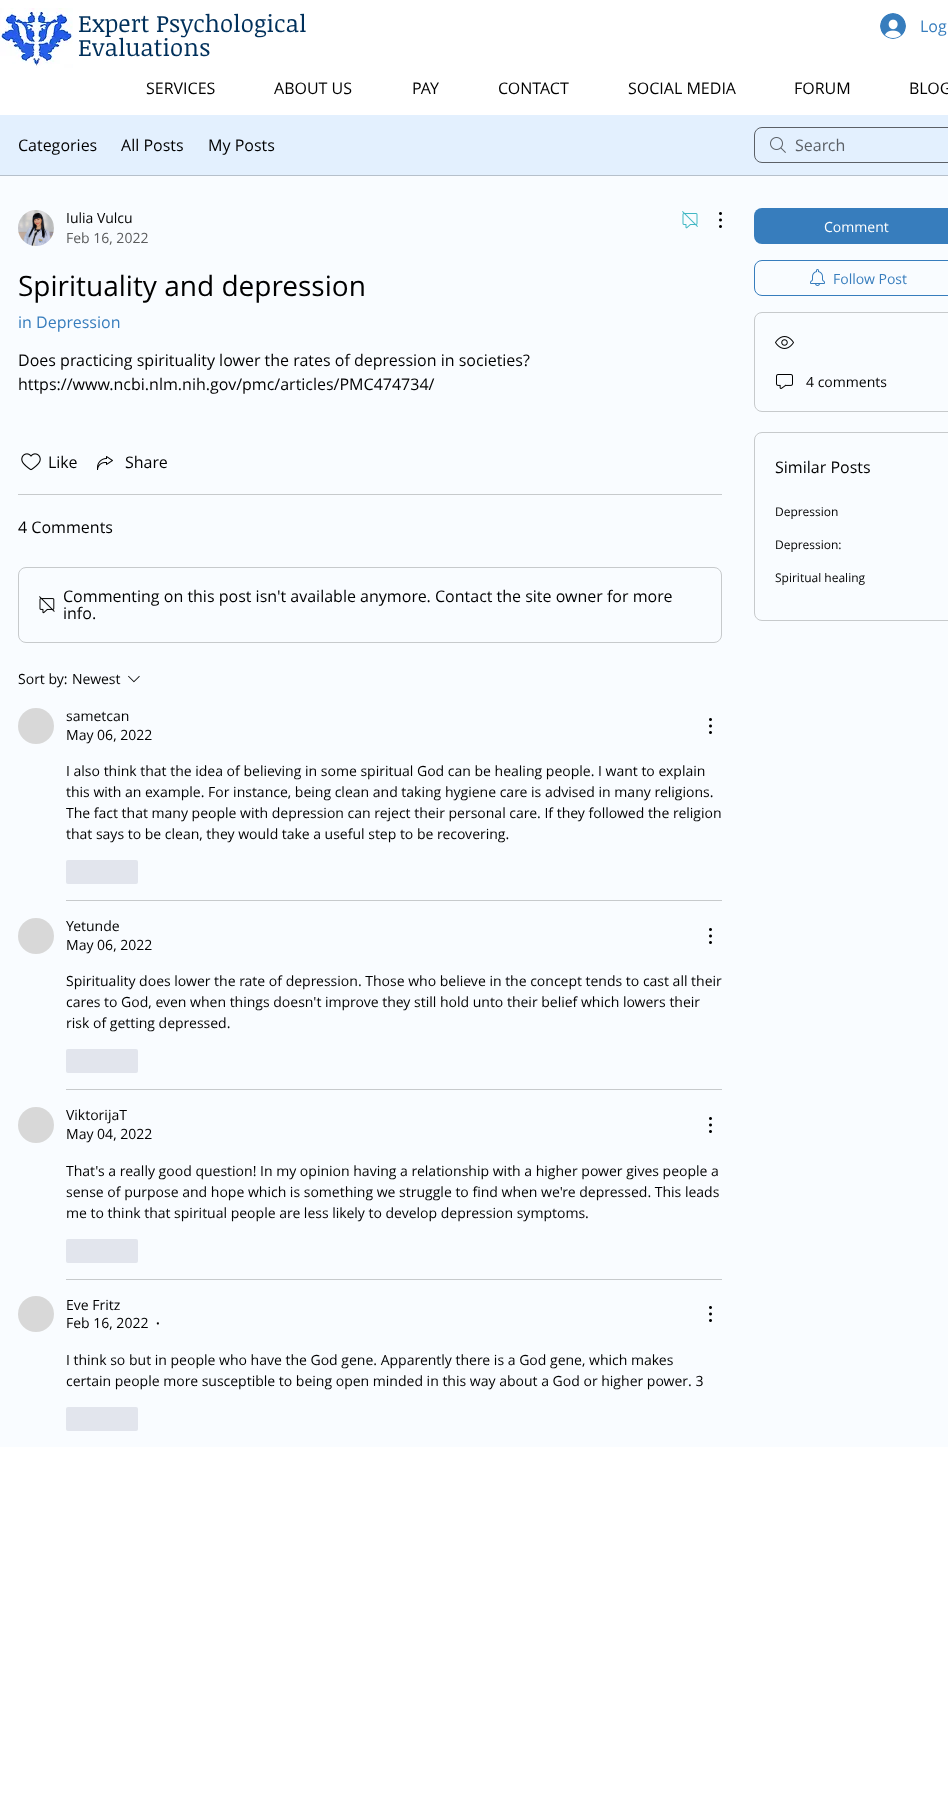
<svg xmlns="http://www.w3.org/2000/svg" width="948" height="1796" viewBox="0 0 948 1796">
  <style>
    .t1 { font: 24px Noticia Text; fill: #00305b; }
    .t2 { font: 16px Open Sans; fill: #377dbd; }
    .t3 { font: 16px Open Sans; fill: #000; }
    .t4 { font: 16px Open Sans; fill: #5b6066; }
    .t5 { font: 14px Open Sans; fill: #000; }
    .t6 { font: 14px Open Sans; fill: #5a5b5c; }
    .t7 { font: 28px Open Sans; fill: #000; }
    .t8 { font: 10px Open Sans; fill: #000; }
    .t9 { font: 14px Open Sans; fill: #fff; }
    .t10 { font: 14px Open Sans; fill: #377dbd; }
    .t11 { font: 12px Open Sans; fill: #000; }
  </style>
  <rect width="100%" height="100%" fill="#fff"/>
  <image x="0" y="8" width="73" height="60" href="images/1.png"/>
  <text x="78" y="32" class="t1">Expert Psychological</text>
  <text x="78" y="56" class="t1">Evaluations</text>
  <image x="880" y="13" width="26" height="26" href="images/2.png"/>
  <text x="920" y="32" class="t2">Log</text>
  <text x="146" y="94" class="t3">SERVICES</text>
  <text x="274" y="94" class="t3">ABOUT US</text>
  <text x="412" y="94" class="t3">PAY</text>
  <text x="498" y="94" class="t3">CONTACT</text>
  <text x="628" y="94" class="t3">SOCIAL MEDIA</text>
  <text x="794" y="94" class="t3">FORUM</text>
  <text x="909" y="94" class="t3">BLOG</text>
  <rect x="0" y="115" width="948" height="60" fill="#e3f0fe"/>
  <rect x="0" y="175" width="948" height="1" fill="#b6c0cb"/>
  <text x="18" y="151" class="t3">Categories</text>
  <text x="121" y="151" class="t3">All Posts</text>
  <text x="208" y="151" class="t3">My Posts</text>
  <image x="770" y="137" width="16" height="16" href="images/3.png"/>
  <rect x="754.5" y="127.5" width="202" height="35" rx="7.5" fill="none" stroke="#5b6066"/>
  <text x="795" y="151" class="t4">Search</text>
  <rect x="0" y="176" width="948" height="1271" fill="#f9fcff"/>
  <image x="18" y="210" width="36" height="36" href="images/4.png"/>
  <text x="66" y="223" class="t5">Iulia Vulcu</text>
  <text x="66" y="243" class="t6">Feb 16, 2022</text>
  <image x="682" y="211" width="16" height="18" href="images/5.png"/>
  <image x="719" y="212" width="3" height="16" href="images/6.png"/>
  <text x="18" y="296" class="t7">Spirituality and depression</text>
  <text x="18" y="328" class="t2">in Depression</text>
  <text x="18" y="366" class="t3">Does practicing spirituality lower the rates of depression in societies?</text>
  <text x="18" y="390" class="t3">https://www.ncbi.nlm.nih.gov/pmc/articles/PMC474734/</text>
  <image x="21" y="453" width="20" height="18" href="images/7.png"/>
  <text x="48" y="468" class="t3">Like</text>
  <image x="97" y="456" width="16" height="14" href="images/8.png"/>
  <text x="125" y="468" class="t3">Share</text>
  <rect x="18" y="494" width="704" height="1" fill="#c7cacc"/>
  <text x="18" y="533" class="t3">4 Comments</text>
  <rect x="18.5" y="567.5" width="703" height="75" rx="7.5" fill="none" stroke="#c7cacc"/>
  <image x="39" y="596" width="16" height="18" href="images/9.png"/>
  <text x="63" y="602" class="t3">Commenting on this post isn't available anymore. Contact the site owner for more</text>
  <text x="63" y="619" class="t3">info.</text>
  <text x="18" y="684" class="t5">Sort by:</text>
  <text x="72" y="684" class="t5">Newest</text>
  <image x="128" y="675" width="12" height="8" href="images/10.png"/>
  <circle cx="36" cy="726" r="18" fill="#d8d8d8"/>
  <text x="66" y="721" class="t5">sametcan</text>
  <text x="66" y="740" class="t5">May 06, 2022</text>
  <image x="709" y="718" width="3" height="16" href="images/11.png"/>
  <text x="66" y="776" class="t5">I also think that the idea of believing in some spiritual God can be healing people. I want to explain</text>
  <text x="66" y="797" class="t5">this with an example. For instance, being clean and taking hygiene care is advised in many religions.</text>
  <text x="66" y="818" class="t5">The fact that many people with depression can reject their personal care. If they followed the religion</text>
  <text x="66" y="839" class="t5">that says to be clean, they would take a useful step to be recovering.</text>
  <rect x="66" y="860" width="72" height="24" rx="2" fill="#e2e5ed"/>
  <rect x="66" y="900" width="656" height="1" fill="#c7cacc"/>
  <circle cx="36" cy="936" r="18" fill="#d8d8d8"/>
  <text x="66" y="931" class="t5">Yetunde</text>
  <text x="66" y="950" class="t5">May 06, 2022</text>
  <image x="709" y="928" width="3" height="16" href="images/11.png"/>
  <text x="66" y="986" class="t5">Spirituality does lower the rate of depression. Those who believe in the concept tends to cast all their</text>
  <text x="66" y="1007" class="t5">cares to God, even when things doesn't improve they still hold unto their belief which lowers their</text>
  <text x="66" y="1028" class="t5">risk of getting depressed.</text>
  <rect x="66" y="1049" width="72" height="24" rx="2" fill="#e2e5ed"/>
  <rect x="66" y="1089" width="656" height="1" fill="#c7cacc"/>
  <circle cx="36" cy="1125" r="18" fill="#d8d8d8"/>
  <text x="66" y="1120" class="t5">ViktorijaT</text>
  <text x="66" y="1139" class="t5">May 04, 2022</text>
  <image x="709" y="1117" width="3" height="16" href="images/11.png"/>
  <text x="66" y="1176" class="t5">That's a really good question! In my opinion having a relationship with a higher power gives people a</text>
  <text x="66" y="1197" class="t5">sense of purpose and hope which is something we struggle to find when we're depressed. This leads</text>
  <text x="66" y="1218" class="t5">me to think that spiritual people are less likely to develop depression symptoms.</text>
  <rect x="66" y="1239" width="72" height="24" rx="2" fill="#e2e5ed"/>
  <rect x="66" y="1279" width="656" height="1" fill="#c7cacc"/>
  <circle cx="36" cy="1314" r="18" fill="#d8d8d8"/>
  <text x="66" y="1310" class="t5">Eve Fritz</text>
  <text x="66" y="1328" class="t5">Feb 16, 2022</text>
  <text x="156" y="1327" class="t8">•</text>
  <image x="709" y="1306" width="3" height="16" href="images/11.png"/>
  <text x="66" y="1365" class="t5">I think so but in people who have the God gene. Apparently there is a God gene, which makes</text>
  <text x="66" y="1386" class="t5">certain people more susceptible to being open minded in this way about a God or higher power. 3</text>
  <rect x="66" y="1407" width="72" height="24" rx="2" fill="#e2e5ed"/>
  <rect x="754" y="208" width="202" height="36" rx="8" fill="#377dbd"/>
  <text x="824" y="232" class="t9">Comment</text>
  <rect x="754.5" y="260.5" width="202" height="35" rx="7.5" fill="none" stroke="#377dbd"/>
  <image x="810" y="269" width="15" height="17" href="images/12.png"/>
  <text x="833" y="284" class="t10">Follow Post</text>
  <rect x="754.5" y="312.5" width="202" height="99" rx="7.5" fill="none" stroke="#c7cacc"/>
  <image x="775" y="336" width="19" height="13" href="images/13.png"/>
  <image x="776" y="374" width="17" height="15" href="images/14.png"/>
  <text x="806" y="387" class="t5">4 comments</text>
  <rect x="754.5" y="432.5" width="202" height="188" rx="7.5" fill="none" stroke="#c7cacc"/>
  <text x="775" y="473" class="t3">Similar Posts</text>
  <text x="775" y="516" class="t11">Depression</text>
  <text x="775" y="549" class="t11">Depression:</text>
  <text x="775" y="582" class="t11">Spiritual healing</text>
</svg>
